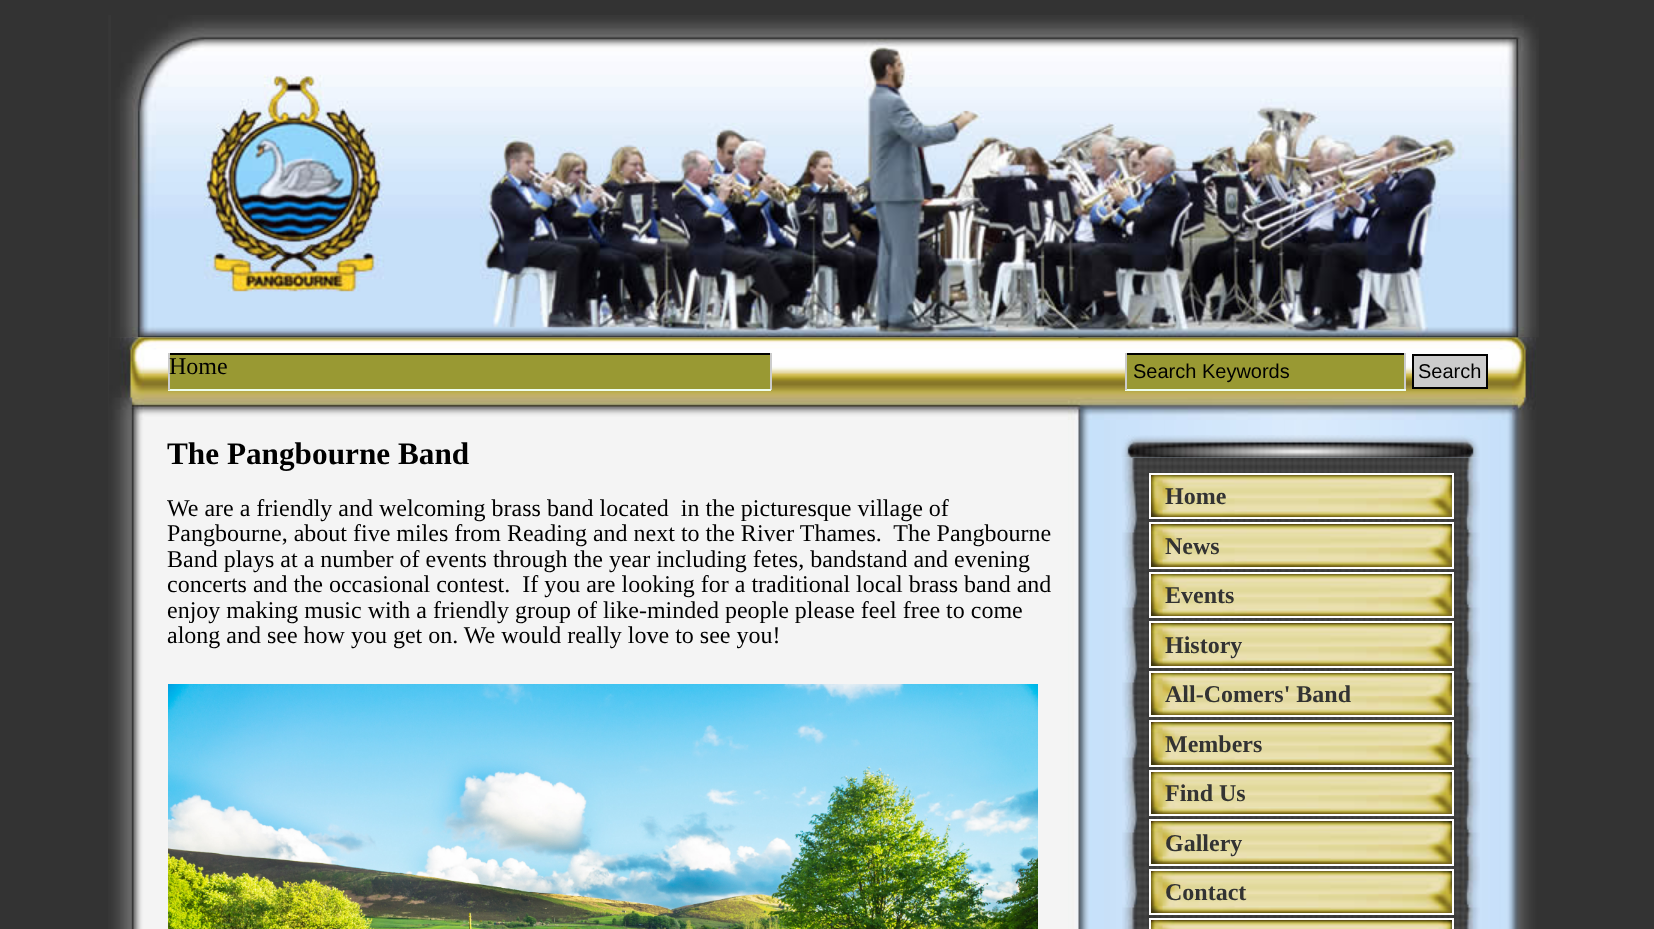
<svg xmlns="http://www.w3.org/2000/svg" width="1654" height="929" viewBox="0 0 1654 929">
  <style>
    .t1 { font: 24px Liberation Serif; fill: #000; }
    .t2 { font: 20px Liberation Sans; fill: #000; }
    .t3 { font: bold 31.25px Liberation Serif; fill: #000; }
    .t4 { font: bold 24px Liberation Serif; fill: #333; }
  </style>
  <rect width="100%" height="100%" fill="#333"/>
  <image x="108" y="15" width="1440" height="914" href="images/1.png"/>
  <image x="111" y="15" width="1428" height="323" href="images/2.png"/>
  <image x="109" y="337" width="1427" height="83" href="images/3.png"/>
  <rect x="170" y="355" width="600" height="34" fill="#993"/>
  <rect x="168" y="353" width="603" height="2" fill="#000"/>
  <rect x="770" y="353" width="2" height="37" fill="#ccc"/>
  <rect x="168" y="389" width="603" height="2" fill="#efe"/>
  <rect x="168" y="353" width="2" height="37" fill="#ccc"/>
  <text x="169" y="374" class="t1">Home</text>
  <rect x="1127" y="355" width="277" height="34" fill="#993"/>
  <rect x="1125" y="353" width="281" height="2" fill="#000"/>
  <rect x="1404" y="353" width="2" height="37" fill="#ccc"/>
  <rect x="1125" y="389" width="281" height="2" fill="#efe"/>
  <rect x="1125" y="353" width="2" height="37" fill="#ccc"/>
  <text x="1133" y="378" class="t2">Search Keywords</text>
  <rect x="1413" y="355" width="74" height="33" fill="#ccc" stroke="#000" stroke-width="2"/>
  <text x="1418" y="378" class="t2">Search</text>
  <text x="167" y="464" class="t3">The Pangbourne Band</text>
  <text x="167" y="516" class="t1" xml:space="preserve">We are a friendly and welcoming brass band located  in the picturesque village of</text>
  <text x="167" y="541" class="t1" xml:space="preserve">Pangbourne, about five miles from Reading and next to the River Thames.  The Pangbourne</text>
  <text x="167" y="567" class="t1">Band plays at a number of events through the year including fetes, bandstand and evening</text>
  <text x="167" y="592" class="t1" xml:space="preserve">concerts and the occasional contest.  If you are looking for a traditional local brass band and</text>
  <text x="167" y="618" class="t1">enjoy making music with a friendly group of like-minded people please feel free to come</text>
  <text x="167" y="643" class="t1">along and see how you get on. We would really love to see you!</text>
  <image x="168" y="684" width="870" height="245" href="images/4.png"/>
  <image x="1122" y="457" width="358" height="472" href="images/6.png"/>
  <image x="1121" y="435" width="359" height="23" href="images/5.png"/>
  <image x="1151" y="475" width="301" height="42" href="images/7.png"/>
  <rect x="1150" y="474" width="303" height="44" fill="none" stroke="#fff" stroke-width="2"/>
  <text x="1165" y="504" class="t4">Home</text>
  <image x="1151" y="524" width="301" height="43" href="images/8.png"/>
  <rect x="1150" y="523" width="303" height="45" fill="none" stroke="#fff" stroke-width="2"/>
  <text x="1165" y="554" class="t4">News</text>
  <image x="1151" y="574" width="301" height="42" href="images/7.png"/>
  <rect x="1150" y="573" width="303" height="44" fill="none" stroke="#fff" stroke-width="2"/>
  <text x="1165" y="603" class="t4">Events</text>
  <image x="1151" y="623" width="301" height="43" href="images/8.png"/>
  <rect x="1150" y="622" width="303" height="45" fill="none" stroke="#fff" stroke-width="2"/>
  <text x="1165" y="653" class="t4">History</text>
  <image x="1151" y="673" width="301" height="42" href="images/7.png"/>
  <rect x="1150" y="672" width="303" height="44" fill="none" stroke="#fff" stroke-width="2"/>
  <text x="1165" y="702" class="t4">All-Comers' Band</text>
  <image x="1151" y="722" width="301" height="43" href="images/8.png"/>
  <rect x="1150" y="721" width="303" height="45" fill="none" stroke="#fff" stroke-width="2"/>
  <text x="1165" y="752" class="t4">Members</text>
  <image x="1151" y="772" width="301" height="42" href="images/7.png"/>
  <rect x="1150" y="771" width="303" height="44" fill="none" stroke="#fff" stroke-width="2"/>
  <text x="1165" y="801" class="t4">Find Us</text>
  <image x="1151" y="821" width="301" height="43" href="images/8.png"/>
  <rect x="1150" y="820" width="303" height="45" fill="none" stroke="#fff" stroke-width="2"/>
  <text x="1165" y="851" class="t4">Gallery</text>
  <image x="1151" y="871" width="301" height="42" href="images/7.png"/>
  <rect x="1150" y="870" width="303" height="44" fill="none" stroke="#fff" stroke-width="2"/>
  <text x="1165" y="900" class="t4">Contact</text>
  <image x="1151" y="920" width="301" height="9" href="images/9.png"/>
  <rect x="1150" y="919" width="303" height="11" fill="none" stroke="#fff" stroke-width="2"/>
</svg>
